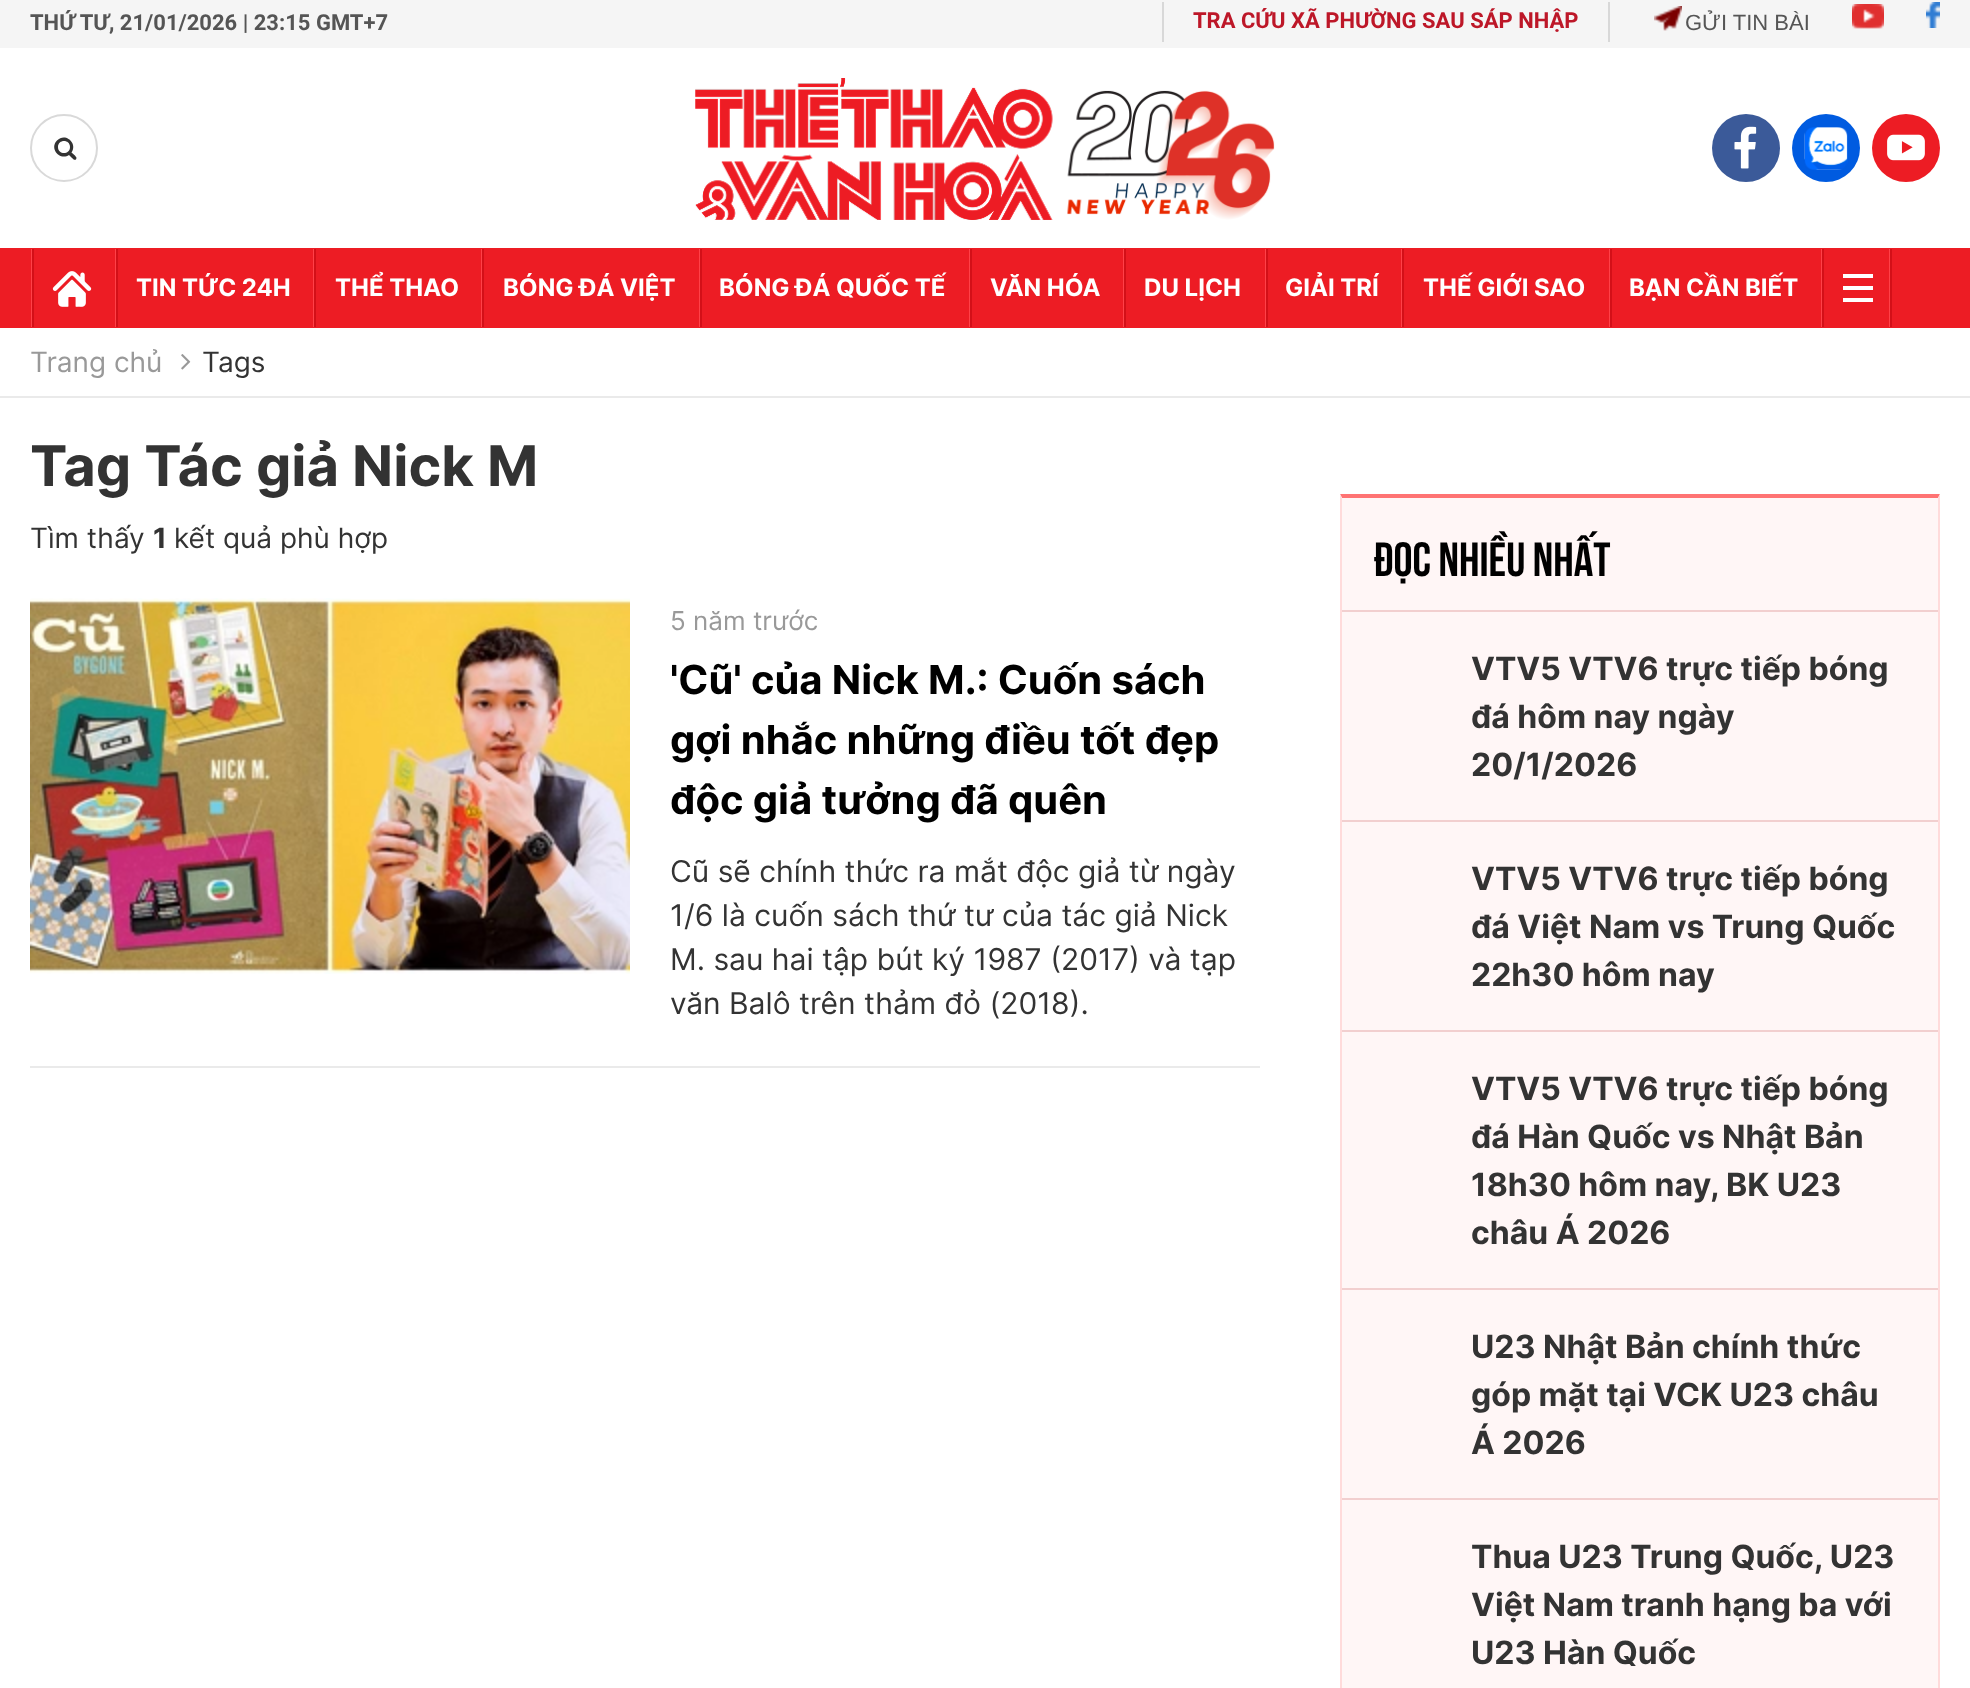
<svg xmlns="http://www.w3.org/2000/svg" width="1970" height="1688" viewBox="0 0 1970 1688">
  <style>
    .t1 { font: bold 22px Roboto; fill: #555; }
    .t2 { font: bold 22px Roboto; fill: #bd1728; }
    .t3 { font: 22px Liberation Sans; fill: #555; }
    .t4 { font: bold 24px Inter; fill: #fff; }
    .t5 { font: 28px Inter; fill: #999; }
    .t6 { font: 28px Inter; fill: #333; }
    .t7 { font: bold 56px Inter; fill: #333; }
    .t8 { font: bold 28px Inter; fill: #333; }
    .t9 { font: 26px Inter; fill: #999; }
    .t10 { font: bold 40px Inter; fill: #000; }
    .t11 { font: 30px Inter; fill: #333; }
    .t12 { font: 48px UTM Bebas; fill: #000; }
    .t13 { font: bold 32px Inter; fill: #333; }
  </style>
  <rect width="100%" height="100%" fill="#fff"/>
  <rect x="0" y="0" width="1970" height="48" fill="#f5f5f5"/>
  <text x="30" y="30" class="t1">THỨ TƯ, 21/01/2026 | 23:15 GMT+7</text>
  <rect x="1608" y="2" width="2" height="40" fill="#d8d8d8"/>
  <rect x="1162" y="2" width="2" height="40" fill="#d8d8d8"/>
  <text x="1193" y="28" class="t2">TRA CỨU XÃ PHƯỜNG SAU SÁP NHẬP</text>
  <image x="1654" y="6" width="28" height="25" href="images/1.png"/>
  <text x="1685" y="30" class="t3">GỬI TIN BÀI</text>
  <image x="1852" y="4" width="32" height="25" href="images/2.png"/>
  <image x="1926" y="2" width="14" height="26" href="images/3.png"/>
  <circle cx="64" cy="148" r="33" fill="none" stroke="#d9d9d9" stroke-width="2"/>
  <path d="M70 147C70 139 58 139 58 147C58 155 70 155 70 147ZM76.5 158L76 159.5C74.5 160.5 73 159 72 158L69 155C60 161 49 148.5 57 140.5C65.5 132 78 143.5 71.5 152.5C72.5 153.5 76.5 156.5 76.5 158Z" fill="#333"/>
  <image x="695" y="78" width="580" height="142" href="images/4.png"/>
  <circle cx="1746" cy="148" r="34" fill="#3b5a99"/>
  <image x="1734" y="126" width="23" height="43" href="images/5.png"/>
  <circle cx="1826" cy="148" r="34" fill="#005be0"/>
  <image x="1804" y="127" width="44" height="43" href="images/6.png"/>
  <circle cx="1906" cy="148" r="34" fill="#ed1c24"/>
  <image x="1887" y="134" width="38" height="27" href="images/7.png"/>
  <rect x="0" y="248" width="1970" height="80" fill="#ed1c24"/>
  <rect x="31" y="249" width="1" height="78" fill="#ff4148"/>
  <rect x="32" y="249" width="2" height="78" fill="#d31018"/>
  <image x="52" y="271" width="40" height="36" href="images/8.png"/>
  <rect x="115" y="249" width="1" height="78" fill="#ff4148"/>
  <rect x="116" y="249" width="2" height="78" fill="#d31018"/>
  <text x="136" y="296" class="t4">TIN TỨC 24H</text>
  <rect x="313" y="249" width="1" height="78" fill="#ff4148"/>
  <rect x="314" y="249" width="2" height="78" fill="#d31018"/>
  <text x="335" y="296" class="t4">THỂ THAO</text>
  <rect x="481" y="249" width="1" height="78" fill="#ff4148"/>
  <rect x="482" y="249" width="2" height="78" fill="#d31018"/>
  <text x="503" y="296" class="t4">BÓNG ĐÁ VIỆT</text>
  <rect x="699" y="249" width="1" height="78" fill="#ff4148"/>
  <rect x="700" y="249" width="2" height="78" fill="#d31018"/>
  <text x="719" y="296" class="t4">BÓNG ĐÁ QUỐC TẾ</text>
  <rect x="969" y="249" width="1" height="78" fill="#ff4148"/>
  <rect x="970" y="249" width="2" height="78" fill="#d31018"/>
  <text x="990" y="296" class="t4">VĂN HÓA</text>
  <rect x="1123" y="249" width="1" height="78" fill="#ff4148"/>
  <rect x="1124" y="249" width="2" height="78" fill="#d31018"/>
  <text x="1144" y="296" class="t4">DU LỊCH</text>
  <rect x="1265" y="249" width="1" height="78" fill="#ff4148"/>
  <rect x="1266" y="249" width="2" height="78" fill="#d31018"/>
  <text x="1285" y="296" class="t4">GIẢI TRÍ</text>
  <rect x="1401" y="249" width="1" height="78" fill="#ff4148"/>
  <rect x="1402" y="249" width="2" height="78" fill="#d31018"/>
  <text x="1423" y="296" class="t4">THẾ GIỚI SAO</text>
  <rect x="1609" y="249" width="1" height="78" fill="#ff4148"/>
  <rect x="1610" y="249" width="2" height="78" fill="#d31018"/>
  <text x="1629" y="296" class="t4">BẠN CẦN BIẾT</text>
  <rect x="1821" y="249" width="1" height="78" fill="#ff4148"/>
  <rect x="1822" y="249" width="2" height="78" fill="#d31018"/>
  <rect x="1843" y="274" width="30" height="4" fill="#fff"/>
  <rect x="1843" y="286" width="30" height="4" fill="#fff"/>
  <rect x="1843" y="298" width="30" height="4" fill="#fff"/>
  <rect x="1889" y="249" width="1" height="78" fill="#ff4148"/>
  <rect x="1890" y="249" width="2" height="78" fill="#d31018"/>
  <rect x="0" y="396" width="1970" height="2" fill="#eaeaea"/>
  <text x="30" y="372" class="t5">Trang chủ</text>
  <image x="181" y="354" width="10" height="16" href="images/9.png"/>
  <text x="202" y="372" class="t6">Tags</text>
  <text x="30" y="486" class="t7">Tag Tác giả Nick M</text>
  <text x="30" y="548" class="t6">Tìm thấy</text>
  <text x="153" y="548" class="t8">1</text>
  <text x="174" y="548" class="t6">kết quả phù hợp</text>
  <rect x="30" y="1066" width="1230" height="2" fill="#eaeaea"/>
  <image x="30" y="598" width="600" height="376" href="images/10.png"/>
  <text x="670" y="630" class="t9">5 năm trước</text>
  <text x="670" y="694" class="t10">'Cũ' của Nick M.: Cuốn sách</text>
  <text x="670" y="754" class="t10">gợi nhắc những điều tốt đẹp</text>
  <text x="670" y="814" class="t10">độc giả tưởng đã quên</text>
  <text x="670" y="882" class="t11">Cũ sẽ chính thức ra mắt độc giả từ ngày</text>
  <text x="670" y="926" class="t11">1/6 là cuốn sách thứ tư của tác giả Nick</text>
  <text x="670" y="970" class="t11">M. sau hai tập bút ký 1987 (2017) và tạp</text>
  <text x="670" y="1014" class="t11">văn Balô trên thảm đỏ (2018).</text>
  <rect x="1342" y="498" width="596" height="1190" fill="#fff6f6"/>
  <path d="M1340 494H1940L1938 498H1342Z" fill="#ff7373"/>
  <path d="M1940 494V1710L1938 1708V498Z" fill="#ffdbdb"/>
  <path d="M1340 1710V494L1342 498V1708Z" fill="#ffdbdb"/>
  <text x="1374" y="576" class="t12">ĐỌC NHIỀU NHẤT</text>
  <rect x="1342" y="610" width="596" height="2" fill="#f2cfcf"/>
  <text x="1471" y="680" class="t13">VTV5 VTV6 trực tiếp bóng</text>
  <text x="1471" y="728" class="t13">đá hôm nay ngày</text>
  <text x="1471" y="776" class="t13">20/1/2026</text>
  <rect x="1342" y="820" width="596" height="2" fill="#f2cfcf"/>
  <text x="1471" y="890" class="t13">VTV5 VTV6 trực tiếp bóng</text>
  <text x="1471" y="938" class="t13">đá Việt Nam vs Trung Quốc</text>
  <text x="1471" y="986" class="t13">22h30 hôm nay</text>
  <rect x="1342" y="1030" width="596" height="2" fill="#f2cfcf"/>
  <text x="1471" y="1100" class="t13">VTV5 VTV6 trực tiếp bóng</text>
  <text x="1471" y="1148" class="t13">đá Hàn Quốc vs Nhật Bản</text>
  <text x="1471" y="1196" class="t13">18h30 hôm nay, BK U23</text>
  <text x="1471" y="1244" class="t13">châu Á 2026</text>
  <rect x="1342" y="1288" width="596" height="2" fill="#f2cfcf"/>
  <text x="1471" y="1358" class="t13">U23 Nhật Bản chính thức</text>
  <text x="1471" y="1406" class="t13">góp mặt tại VCK U23 châu</text>
  <text x="1471" y="1454" class="t13">Á 2026</text>
  <rect x="1342" y="1498" width="596" height="2" fill="#f2cfcf"/>
  <text x="1471" y="1568" class="t13">Thua U23 Trung Quốc, U23</text>
  <text x="1471" y="1616" class="t13">Việt Nam tranh hạng ba với</text>
  <text x="1471" y="1664" class="t13">U23 Hàn Quốc</text>
</svg>
